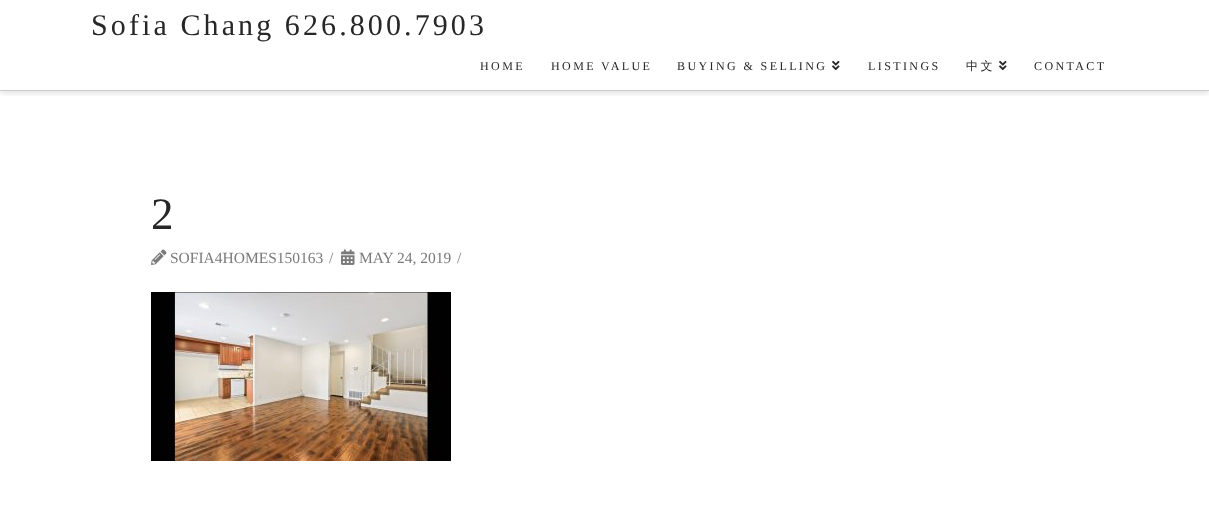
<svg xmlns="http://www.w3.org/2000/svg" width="1209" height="521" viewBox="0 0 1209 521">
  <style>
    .t1 { font: 30px Liberation Serif; letter-spacing: 3.1px; fill: #272727; }
    .t2 { font: 12px Liberation Serif; letter-spacing: 2.4px; fill: #272727; }
    .t3 { font: 500 12px WenQuanYi Zen Hei; letter-spacing: 2.4px; fill: #272727; }
    .t4 { font: 45px Liberation Serif; letter-spacing: -1px; fill: #272727; }
    .t5 { font: 15.5px Liberation Serif; fill: #7a7a7a; }
  </style>
  <defs>
    <clipPath id="clip1"><rect x="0" y="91" width="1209" height="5"/></clipPath>
  </defs>
  <rect width="100%" height="100%" fill="#fff"/>
  <g clip-path="url(#clip1)">
    <rect x="0" y="2" width="1209" height="91" fill="#00000021" filter="blur(3px)"/>
  </g>
  <rect x="0" y="90" width="1209" height="1" fill="#ccc"/>
  <text x="91" y="35" class="t1">Sofia Chang 626.800.7903</text>
  <text x="480" y="70" class="t2">HOME</text>
  <text x="551" y="70" class="t2">HOME VALUE</text>
  <text x="677" y="70" class="t2">BUYING &amp; SELLING</text>
  <image x="832" y="60" width="8" height="11" href="images/1.png"/>
  <text x="868" y="70" class="t2">LISTINGS</text>
  <text x="966" y="70" class="t3">中文</text>
  <image x="999" y="60" width="8" height="11" href="images/1.png"/>
  <text x="1034" y="70" class="t2">CONTACT</text>
  <text x="151" y="229" class="t4">2</text>
  <image x="151" y="249" width="16" height="16" href="images/2.png"/>
  <text x="170" y="263" class="t5">SOFIA4HOMES150163</text>
  <text x="329" y="263" class="t5">/</text>
  <image x="341" y="249" width="14" height="16" href="images/3.png"/>
  <text x="359" y="263" class="t5">MAY 24, 2019</text>
  <text x="457" y="263" class="t5">/</text>
  <image x="151" y="292" width="300" height="169" href="images/4.png"/>
</svg>
